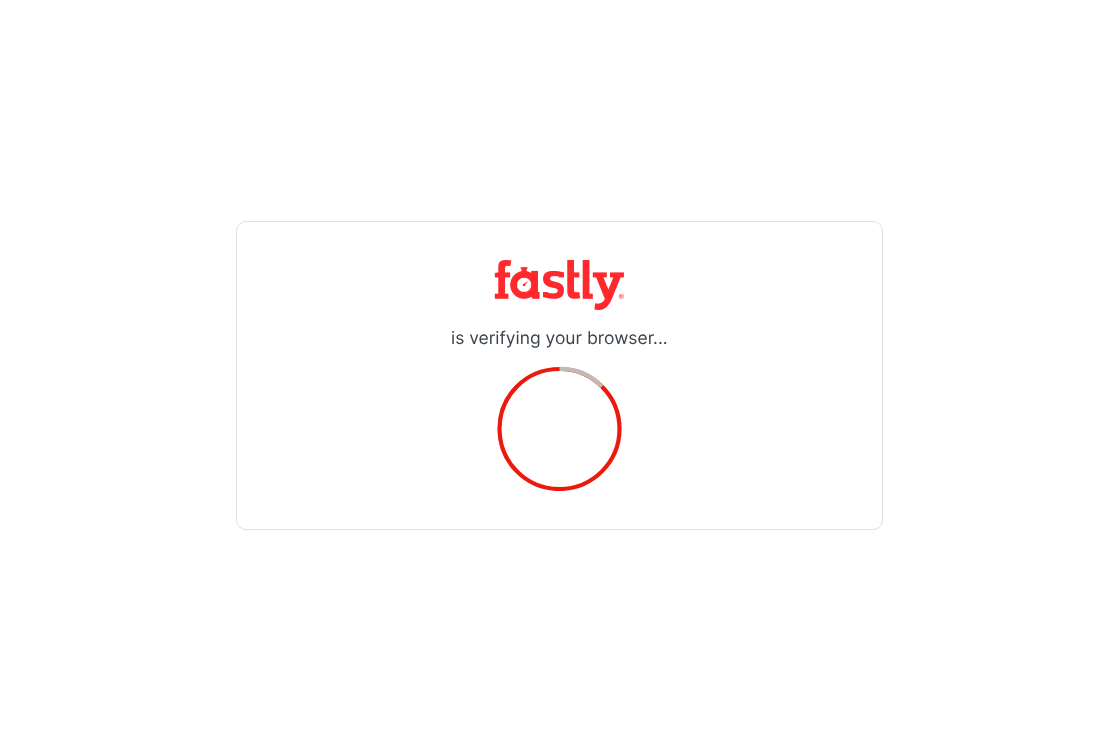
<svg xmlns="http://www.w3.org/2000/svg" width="1118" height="749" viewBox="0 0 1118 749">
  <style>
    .t1 { font: 17.5px Inter; fill: #3a424a; }
  </style>
  <defs>
    <clipPath id="clip1"><rect x="275" y="366" width="569" height="125"/></clipPath>
  </defs>
  <rect width="100%" height="100%" fill="#fff"/>
  <rect x="236.5" y="221.5" width="646" height="308" rx="9.5" fill="none" stroke="#dce0e4"/>
  <image x="494" y="260" width="130" height="50" href="images/1.png"/>
  <text x="451" y="344" class="t1">is verifying your browser...</text>
  <g clip-path="url(#clip1)">
    <path d="M499.5 429C499.5 395.5 526 369 559.5 369C592.5 369 619.5 395.5 619.5 429C619.5 462 592.5 489 559.5 489C526 489 499.5 462 499.5 429Z" fill="none" stroke="#eb1a0c" stroke-width="4.2"/>
  </g>
  <path d="M602 386.5C590.5 375 575.5 368.5 559.5 369" fill="none" stroke="#c2bab5" stroke-width="4.2"/>
</svg>
